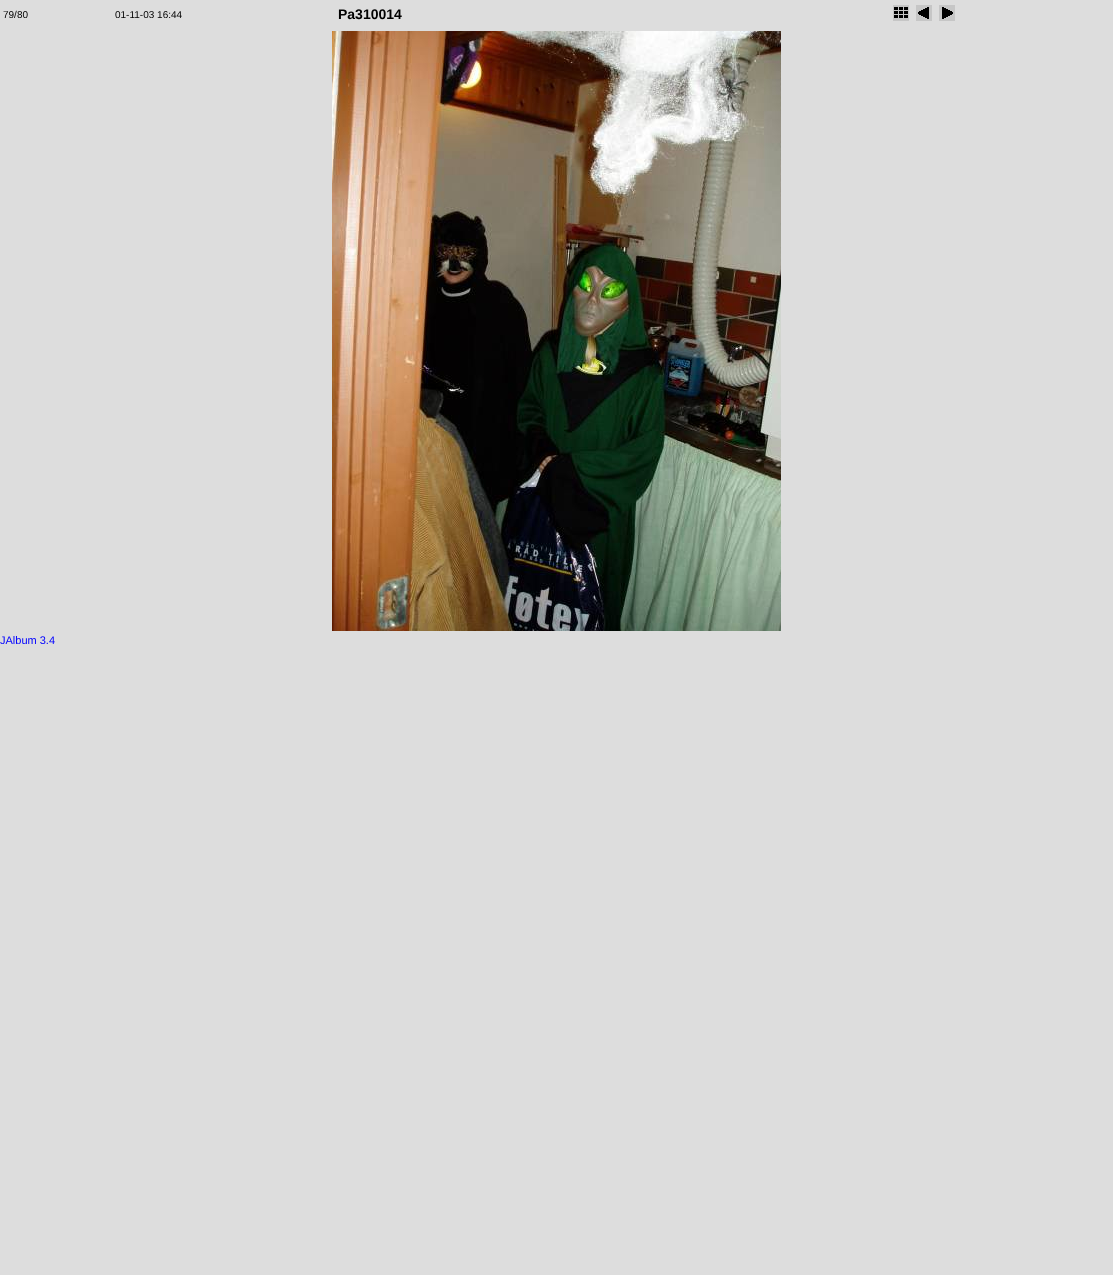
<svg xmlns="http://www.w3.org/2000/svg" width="1113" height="1275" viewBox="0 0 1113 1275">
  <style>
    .t1 { font: 10px Liberation Sans; fill: #000; }
    .t2 { font: bold 14px Liberation Sans; fill: #000; }
    .t3 { font: 11px Liberation Sans; fill: #00f; }
  </style>
  <rect width="100%" height="100%" fill="#ddd"/>
  <text x="3" y="18" class="t1">79/80</text>
  <text x="115" y="18" class="t1">01-11-03 16:44</text>
  <text x="338" y="19" class="t2">Pa310014</text>
  <image x="893" y="5" width="16" height="16" href="images/1.png"/>
  <image x="916" y="5" width="16" height="16" href="images/2.png"/>
  <image x="939" y="5" width="16" height="16" href="images/3.png"/>
  <image x="332" y="31" width="449" height="600" href="images/4.png"/>
  <text x="0" y="644" class="t3">JAlbum 3.4</text>
</svg>
